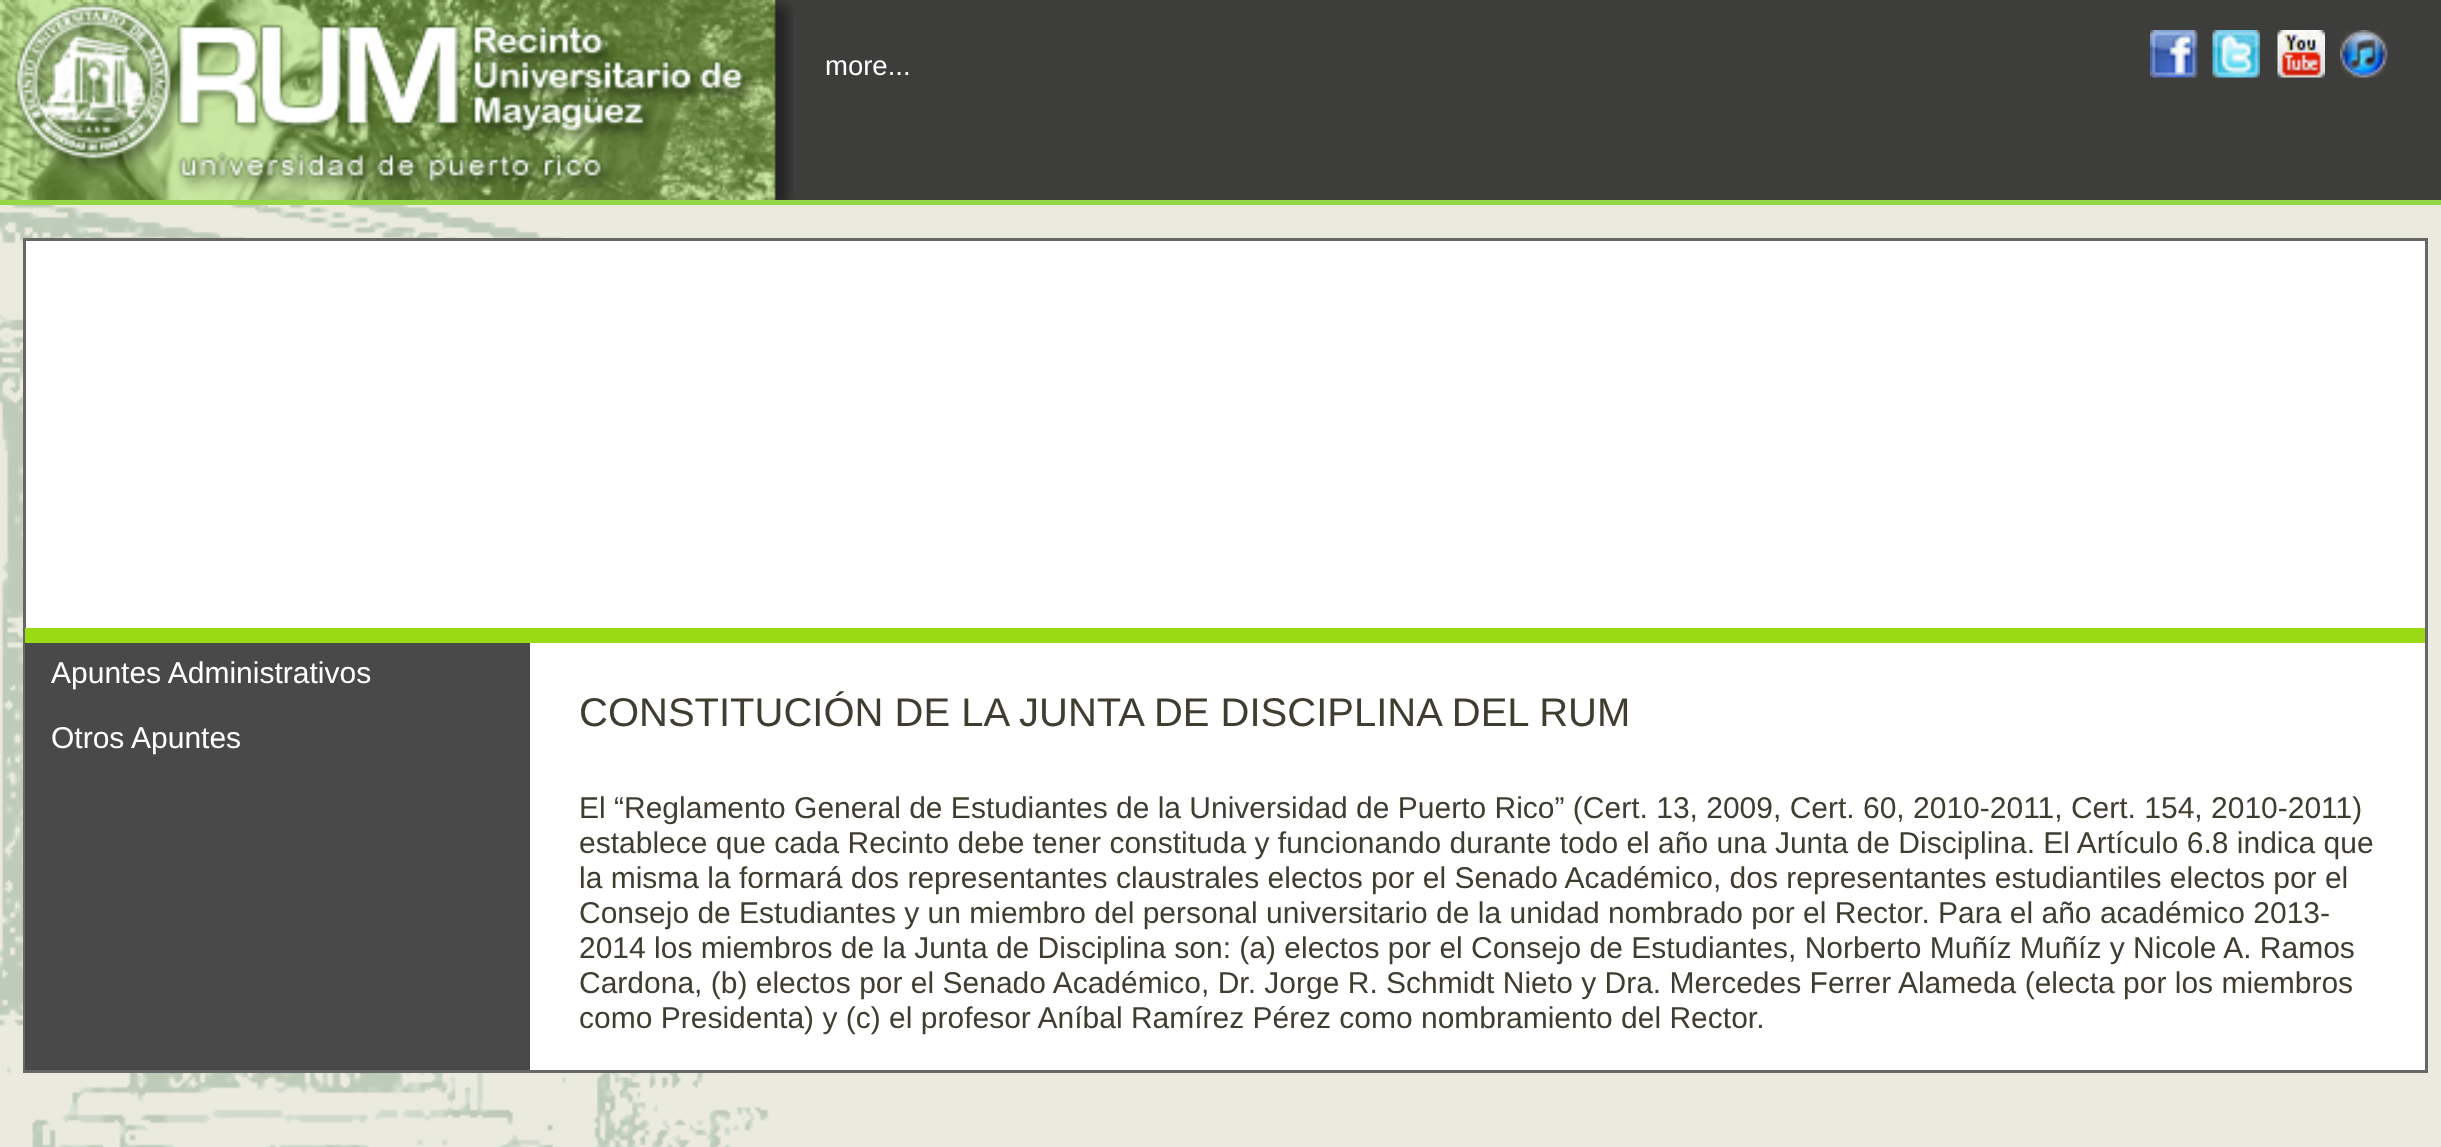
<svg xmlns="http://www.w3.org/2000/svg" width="2441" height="1147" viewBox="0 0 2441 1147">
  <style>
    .t1 { font: 27.5px Liberation Sans; fill: #fff; }
    .t2 { font: 30px Liberation Sans; fill: #fff; }
    .t3 { font: 40px Liberation Sans; fill: #3f3c30; }
    .t4 { font: 30px Liberation Sans; fill: #3f3c30; }
  </style>
  <rect width="100%" height="100%" fill="#eaeade"/>
  <rect x="793" y="0" width="1648" height="200" fill="#3d3d3c"/>
  <rect x="0" y="200" width="2441" height="5" fill="#96d746"/>
  <image x="0" y="0" width="793" height="200" href="images/1.png"/>
  <text x="825" y="75" class="t1">more...</text>
  <image x="2150" y="30" width="48" height="48" href="images/2.png"/>
  <image x="2212" y="30" width="48" height="48" href="images/3.png"/>
  <image x="2277" y="30" width="48" height="48" href="images/4.png"/>
  <image x="2340" y="30" width="48" height="48" href="images/5.png"/>
  <image x="0" y="205" width="769" height="942" href="images/6.png"/>
  <rect x="24.5" y="239.5" width="2402" height="832" fill="#fff" stroke="#676767" stroke-width="3"/>
  <rect x="25" y="628" width="2400" height="15" fill="#99da14"/>
  <rect x="25" y="643" width="505" height="427" fill="#494949"/>
  <text x="51" y="683" class="t2">Apuntes Administrativos</text>
  <text x="51" y="748" class="t2">Otros Apuntes</text>
  <text x="579" y="726" class="t3">CONSTITUCIÓN DE LA JUNTA DE DISCIPLINA DEL RUM</text>
  <text x="579" y="818" class="t4">El “Reglamento General de Estudiantes de la Universidad de Puerto Rico” (Cert. 13, 2009, Cert. 60, 2010-2011, Cert. 154, 2010-2011)</text>
  <text x="579" y="853" class="t4">establece que cada Recinto debe tener constituda y funcionando durante todo el año una Junta de Disciplina. El Artículo 6.8 indica que</text>
  <text x="579" y="888" class="t4">la misma la formará dos representantes claustrales electos por el Senado Académico, dos representantes estudiantiles electos por el</text>
  <text x="579" y="923" class="t4">Consejo de Estudiantes y un miembro del personal universitario de la unidad nombrado por el Rector. Para el año académico 2013-</text>
  <text x="579" y="958" class="t4">2014 los miembros de la Junta de Disciplina son: (a) electos por el Consejo de Estudiantes, Norberto Muñíz Muñíz y Nicole A. Ramos</text>
  <text x="579" y="993" class="t4">Cardona, (b) electos por el Senado Académico, Dr. Jorge R. Schmidt Nieto y Dra. Mercedes Ferrer Alameda (electa por los miembros</text>
  <text x="579" y="1028" class="t4">como Presidenta) y (c) el profesor Aníbal Ramírez Pérez como nombramiento del Rector.</text>
</svg>
